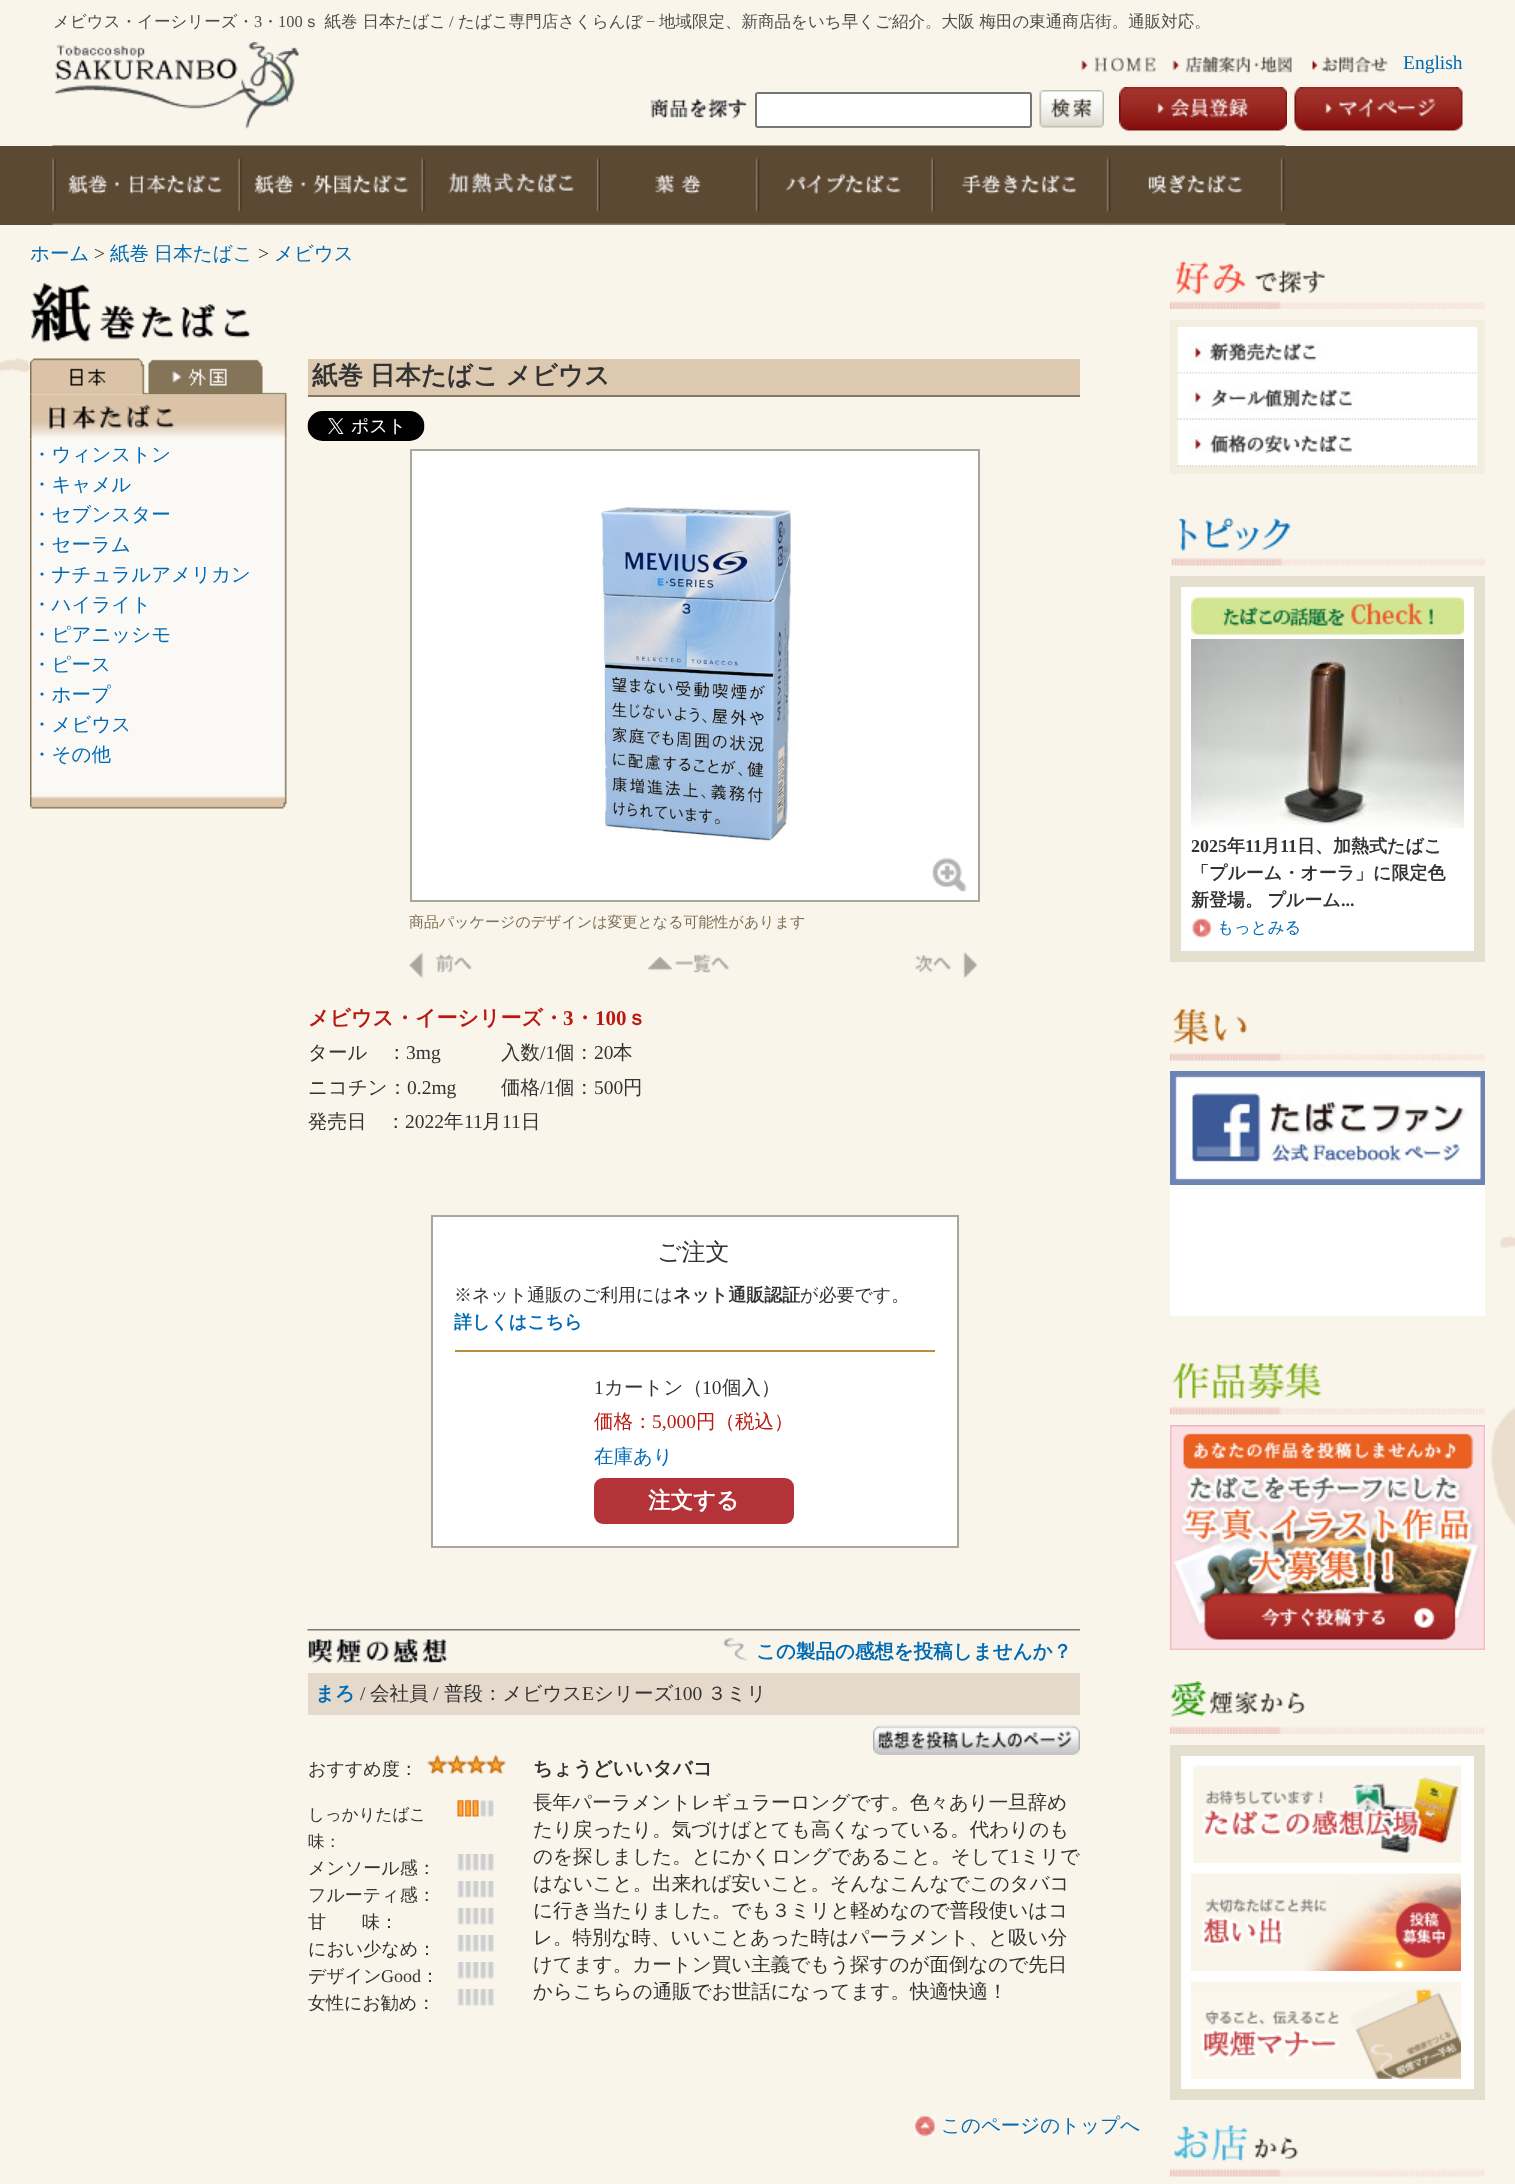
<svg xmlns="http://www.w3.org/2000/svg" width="1515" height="2184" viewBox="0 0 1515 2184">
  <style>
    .t1 { font: 500 16.5px WenQuanYi Zen Hei; fill: #4d4d4d; }
    .t2 { font: 16.5px Liberation Serif; fill: #4d4d4d; }
    .t3 { font: 19.5px Liberation Serif; fill: #006bb4; }
    .t4 { font: 500 19.5px WenQuanYi Zen Hei; fill: #006bb4; }
    .t5 { font: 19.5px Liberation Serif; fill: #333; }
    .t6 { font: bold 25.5px WenQuanYi Zen Hei; fill: #333; }
    .t7 { font: 500 15px WenQuanYi Zen Hei; fill: #816f57; }
    .t8 { font: bold 21px WenQuanYi Zen Hei; fill: #b91911; }
    .t9 { font: bold 21px Liberation Serif; fill: #b91911; }
    .t10 { font: 500 19.5px WenQuanYi Zen Hei; fill: #333; }
    .t11 { font: 500 24px WenQuanYi Zen Hei; fill: #333; }
    .t12 { font: 500 18px WenQuanYi Zen Hei; fill: #333; }
    .t13 { font: bold 18px WenQuanYi Zen Hei; fill: #333; }
    .t14 { font: bold 18px WenQuanYi Zen Hei; fill: #006bb4; }
    .t15 { font: 500 19.5px WenQuanYi Zen Hei; fill: #b91911; }
    .t16 { font: 19.5px Liberation Serif; fill: #b91911; }
    .t17 { font: bold 22.5px WenQuanYi Zen Hei; fill: #fff; }
    .t18 { font: bold 19.5px WenQuanYi Zen Hei; fill: #006bb4; }
    .t19 { font: bold 19.5px WenQuanYi Zen Hei; fill: #333; }
    .t20 { font: 500 16.5px WenQuanYi Zen Hei; fill: #333; }
    .t21 { font: 18px Liberation Serif; fill: #333; }
    .t22 { font: bold 18px Liberation Serif; fill: #333; }
    .t23 { font: 500 16.5px WenQuanYi Zen Hei; fill: #006bb4; }
  </style>
  <rect width="100%" height="100%" fill="#f9f5ea"/>
  <image x="0" y="358" width="1515" height="1168" href="images/1.png"/>
  <text x="53" y="27" class="t1">メビウス・イーシリーズ・</text>
  <text x="254" y="27" class="t2">3</text>
  <text x="262" y="27" class="t1">・</text>
  <text x="278" y="27" class="t2">100</text>
  <text x="303" y="27" class="t1">ｓ 紙巻 日本たばこ</text>
  <text x="449" y="27" class="t2">/</text>
  <text x="458" y="27" class="t1">たばこ専門店さくらんぼ</text>
  <text x="646" y="27" class="t2">−</text>
  <text x="659" y="27" class="t1">地域限定、新商品をいち早くご紹介。大阪 梅田の東通商店街。通販対応。</text>
  <image x="54" y="42" width="246" height="87" href="images/2.png"/>
  <image x="1081" y="56" width="76" height="17" href="images/3.png"/>
  <image x="1172" y="56" width="121" height="18" href="images/4.png"/>
  <image x="1312" y="56" width="76" height="17" href="images/5.png"/>
  <text x="1403" y="69" class="t3">English</text>
  <image x="650" y="98" width="97" height="21" href="images/6.png"/>
  <rect x="756" y="93" width="275" height="34" rx="2" fill="#fff" stroke="#767676" stroke-width="2"/>
  <image x="1039" y="90" width="65" height="38" href="images/7.png"/>
  <image x="1119" y="87" width="168" height="44" href="images/8.png"/>
  <image x="1294" y="87" width="169" height="44" href="images/9.png"/>
  <rect x="0" y="146" width="1515" height="79" fill="#5b4933"/>
  <image x="52" y="145" width="187" height="80" href="images/10.png"/>
  <image x="238" y="145" width="184" height="80" href="images/11.png"/>
  <image x="421" y="145" width="179" height="80" href="images/12.png"/>
  <image x="600" y="145" width="161" height="80" href="images/13.png"/>
  <image x="760" y="145" width="176" height="80" href="images/14.png"/>
  <image x="936" y="145" width="176" height="80" href="images/15.png"/>
  <image x="1111" y="145" width="175" height="80" href="images/16.png"/>
  <text x="30" y="260" class="t4">ホーム</text>
  <text x="94" y="260" class="t5">&gt;</text>
  <text x="110" y="260" word-spacing="-1" class="t4">紙巻 日本たばこ</text>
  <text x="258" y="260" class="t5">&gt;</text>
  <text x="274" y="260" class="t4">メビウス</text>
  <image x="31" y="283" width="220" height="60" href="images/17.png"/>
  <image x="30" y="358" width="119" height="37" href="images/18.png"/>
  <image x="148" y="359" width="139" height="36" href="images/19.png"/>
  <rect x="30" y="440" width="257" height="357" fill="#fafafa"/>
  <image x="30" y="439" width="257" height="358" href="images/21.png"/>
  <image x="30" y="394" width="257" height="46" href="images/20.png"/>
  <text x="32" y="461" class="t4">・ウィンストン</text>
  <text x="32" y="491" class="t4">・キャメル</text>
  <text x="32" y="521" class="t4">・セブンスター</text>
  <text x="32" y="551" class="t4">・セーラム</text>
  <text x="32" y="581" class="t4">・ナチュラルアメリカン</text>
  <text x="32" y="611" class="t4">・ハイライト</text>
  <text x="32" y="641" class="t4">・ピアニッシモ</text>
  <text x="32" y="671" class="t4">・ピース</text>
  <text x="32" y="701" class="t4">・ホープ</text>
  <text x="32" y="731" class="t4">・メビウス</text>
  <text x="32" y="761" class="t4">・その他</text>
  <image x="30" y="796" width="257" height="13" href="images/22.png"/>
  <rect x="308" y="359" width="772" height="36" fill="#ddc9b0"/>
  <rect x="308" y="395" width="772" height="2" fill="#847862"/>
  <text x="312" y="384" word-spacing="-1" class="t6">紙巻 日本たばこ メビウス</text>
  <image x="307" y="411" width="118" height="30" href="images/23.png"/>
  <rect x="411" y="450" width="568" height="451" fill="#fff" stroke="#aaa59d" stroke-width="2"/>
  <image x="601" y="507" width="190" height="336" href="images/24.png"/>
  <image x="931" y="857" width="36" height="35" href="images/25.png"/>
  <image x="409" y="952" width="64" height="26" href="images/26.png"/>
  <image x="646" y="953" width="84" height="20" href="images/27.png"/>
  <image x="915" y="952" width="63" height="26" href="images/28.png"/>
  <text x="409" y="927" class="t7">商品パッケージのデザインは変更となる可能性があります</text>
  <text x="308" y="1025" class="t8">メビウス・イーシリーズ・</text>
  <text x="563" y="1025" class="t9">3</text>
  <text x="574" y="1025" class="t8">・</text>
  <text x="595" y="1025" class="t9">100</text>
  <text x="626" y="1025" class="t8">ｓ</text>
  <text x="308" y="1059" class="t10">タール　：</text>
  <text x="406" y="1059" class="t5">3mg</text>
  <text x="501" y="1059" class="t10">入数</text>
  <text x="540" y="1059" class="t5">/1</text>
  <text x="555" y="1059" class="t10">個：</text>
  <text x="594" y="1059" class="t5">20</text>
  <text x="613" y="1059" class="t10">本</text>
  <text x="308" y="1094" class="t10">ニコチン：</text>
  <text x="407" y="1094" class="t5">0.2mg</text>
  <text x="501" y="1094" class="t10">価格</text>
  <text x="540" y="1094" class="t5">/1</text>
  <text x="555" y="1094" class="t10">個：</text>
  <text x="594" y="1094" class="t5">500</text>
  <text x="623" y="1094" class="t10">円</text>
  <text x="308" y="1128" class="t10">発売日　：</text>
  <text x="405" y="1128" class="t5">2022</text>
  <text x="444" y="1128" class="t10">年</text>
  <text x="464" y="1128" class="t5">11</text>
  <text x="482" y="1128" class="t10">月</text>
  <text x="502" y="1128" class="t5">11</text>
  <text x="521" y="1128" class="t10">日</text>
  <rect x="432" y="1216" width="526" height="331" fill="#fff" stroke="#aaa59d" stroke-width="2"/>
  <text x="657" y="1260" class="t11">ご注文</text>
  <text x="454" y="1301" class="t12">※ネット通販のご利用には</text>
  <text x="673" y="1301" class="t13">ネット通販認証</text>
  <text x="800" y="1301" class="t12">が必要です。</text>
  <text x="454" y="1328" class="t14">詳しくはこちら</text>
  <rect x="455" y="1350" width="480" height="2" fill="#bb8e3e"/>
  <text x="594" y="1394" class="t5">1</text>
  <text x="604" y="1394" class="t10">カートン（</text>
  <text x="702" y="1394" class="t5">10</text>
  <text x="722" y="1394" class="t10">個入）</text>
  <text x="594" y="1428" class="t15">価格：</text>
  <text x="652" y="1428" class="t16">5,000</text>
  <text x="696" y="1428" class="t15">円（税込）</text>
  <text x="594" y="1463" class="t4">在庫あり</text>
  <rect x="594" y="1478" width="200" height="46" rx="9" fill="#b33339"/>
  <text x="648" y="1508" class="t17">注文する</text>
  <image x="307" y="1629" width="773" height="2" href="images/29.png"/>
  <image x="308" y="1638" width="140" height="26" href="images/30.png"/>
  <image x="723" y="1638" width="26" height="23" href="images/31.png"/>
  <text x="756" y="1658" class="t18">この製品の感想を投稿しませんか？</text>
  <rect x="308" y="1673" width="772" height="42" fill="#e4d9cb"/>
  <text x="315" y="1700" class="t18">まろ</text>
  <text x="360" y="1700" class="t5">/</text>
  <text x="370" y="1700" class="t10">会社員</text>
  <text x="433" y="1700" class="t5">/</text>
  <text x="444" y="1700" class="t10">普段：メビウス</text>
  <text x="582" y="1700" class="t5">E</text>
  <text x="594" y="1700" class="t10">シリーズ</text>
  <text x="673" y="1700" class="t5">100</text>
  <text x="707" y="1700" class="t10">３ミリ</text>
  <image x="873" y="1725" width="207" height="30" href="images/32.png"/>
  <text x="308" y="1775" class="t12">おすすめ度：</text>
  <image x="427" y="1755" width="79" height="20" href="images/33.png"/>
  <text x="533" y="1775" class="t19">ちょうどいいタバコ</text>
  <text x="308" y="1820" class="t20">しっかりたばこ</text>
  <text x="308" y="1847" class="t20">味：</text>
  <image x="457" y="1800" width="37" height="17" href="images/34.png"/>
  <text x="308" y="1874" class="t12">メンソール感：</text>
  <image x="457" y="1854" width="37" height="17" href="images/35.png"/>
  <text x="308" y="1901" class="t12">フルーティ感：</text>
  <image x="457" y="1881" width="37" height="17" href="images/35.png"/>
  <text x="308" y="1928" class="t12">甘　　味：</text>
  <image x="457" y="1908" width="37" height="17" href="images/35.png"/>
  <text x="308" y="1955" class="t12">におい少なめ：</text>
  <image x="457" y="1935" width="37" height="17" href="images/35.png"/>
  <text x="308" y="1982" class="t12">デザイン</text>
  <text x="381" y="1982" class="t21">Good</text>
  <text x="421" y="1982" class="t12">：</text>
  <image x="457" y="1962" width="37" height="17" href="images/35.png"/>
  <text x="308" y="2009" class="t12">女性にお勧め：</text>
  <image x="457" y="1989" width="37" height="17" href="images/35.png"/>
  <text x="533" y="1809" class="t10">長年パーラメントレギュラーロングです。色々あり一旦辞め</text>
  <text x="533" y="1836" class="t10">たり戻ったり。気づけばとても高くなっている。代わりのも</text>
  <text x="533" y="1863" class="t10">のを探しました。とにかくロングであること。そして</text>
  <text x="1010" y="1863" class="t5">1</text>
  <text x="1020" y="1863" class="t10">ミリで</text>
  <text x="533" y="1890" class="t10">はないこと。出来れば安いこと。そんなこんなでこのタバコ</text>
  <text x="533" y="1917" class="t10">に行き当たりました。でも３ミリと軽めなので普段使いはコ</text>
  <text x="533" y="1944" class="t10">レ。特別な時、いいことあった時はパーラメント、と吸い分</text>
  <text x="533" y="1971" class="t10">けてます。カートン買い主義でもう探すのが面倒なので先日</text>
  <text x="533" y="1998" class="t10">からこちらの通販でお世話になってます。快適快適！</text>
  <image x="915" y="2116" width="20" height="21" href="images/36.png"/>
  <text x="941" y="2132" class="t4">このページのトップへ</text>
  <image x="1170" y="261" width="315" height="48" href="images/37.png"/>
  <rect x="1170" y="320" width="315" height="154" fill="#f4eedf"/>
  <image x="1177" y="327" width="301" height="47" href="images/38.png"/>
  <path d="M1177.5 373H1477.5" fill="none" stroke="#d3d2d1" stroke-width="1.5" stroke-dasharray="1.5 1.5"/>
  <image x="1177" y="373" width="301" height="47" href="images/39.png"/>
  <path d="M1177.5 419H1477.5" fill="none" stroke="#d3d2d1" stroke-width="1.5" stroke-dasharray="1.5 1.5"/>
  <image x="1177" y="420" width="301" height="47" href="images/40.png"/>
  <path d="M1177.5 466H1477.5" fill="none" stroke="#d3d2d1" stroke-width="1.5" stroke-dasharray="1.5 1.5"/>
  <image x="1170" y="517" width="315" height="49" href="images/41.png"/>
  <rect x="1175.5" y="581.5" width="304" height="375" fill="#fff" stroke="#e5dfce" stroke-width="11"/>
  <image x="1191" y="597" width="273" height="42" href="images/42.png"/>
  <image x="1191" y="639" width="273" height="189" href="images/43.png"/>
  <text x="1191" y="852" class="t22">2025</text>
  <text x="1227" y="852" class="t13">年</text>
  <text x="1245" y="852" class="t22">11</text>
  <text x="1262" y="852" class="t13">月</text>
  <text x="1280" y="852" class="t22">11</text>
  <text x="1297" y="852" class="t13">日、加熱式たばこ</text>
  <text x="1191" y="879" class="t13">「プルーム・オーラ」に限定色</text>
  <text x="1191" y="906" word-spacing="-1" class="t13">新登場。 プルーム</text>
  <text x="1341" y="906" class="t22">...</text>
  <image x="1192" y="917" width="19" height="21" href="images/44.png"/>
  <text x="1217" y="933" class="t23">もっとみる</text>
  <image x="1170" y="1009" width="315" height="52" href="images/45.png"/>
  <image x="1170" y="1071" width="315" height="114" href="images/46.png"/>
  <rect x="1170" y="1185" width="315" height="131" fill="#fff"/>
  <image x="1170" y="1363" width="315" height="52" href="images/47.png"/>
  <image x="1170" y="1425" width="315" height="225" href="images/48.png"/>
  <image x="1170" y="1681" width="315" height="53" href="images/49.png"/>
  <rect x="1175.5" y="1750.5" width="304" height="344" fill="#fff" stroke="#e5dfce" stroke-width="11"/>
  <image x="1192" y="1765" width="269" height="98" href="images/50.png"/>
  <image x="1191" y="1873" width="270" height="98" href="images/51.png"/>
  <image x="1191" y="1981" width="270" height="98" href="images/52.png"/>
  <image x="1170" y="2125" width="315" height="52" href="images/53.png"/>
</svg>
